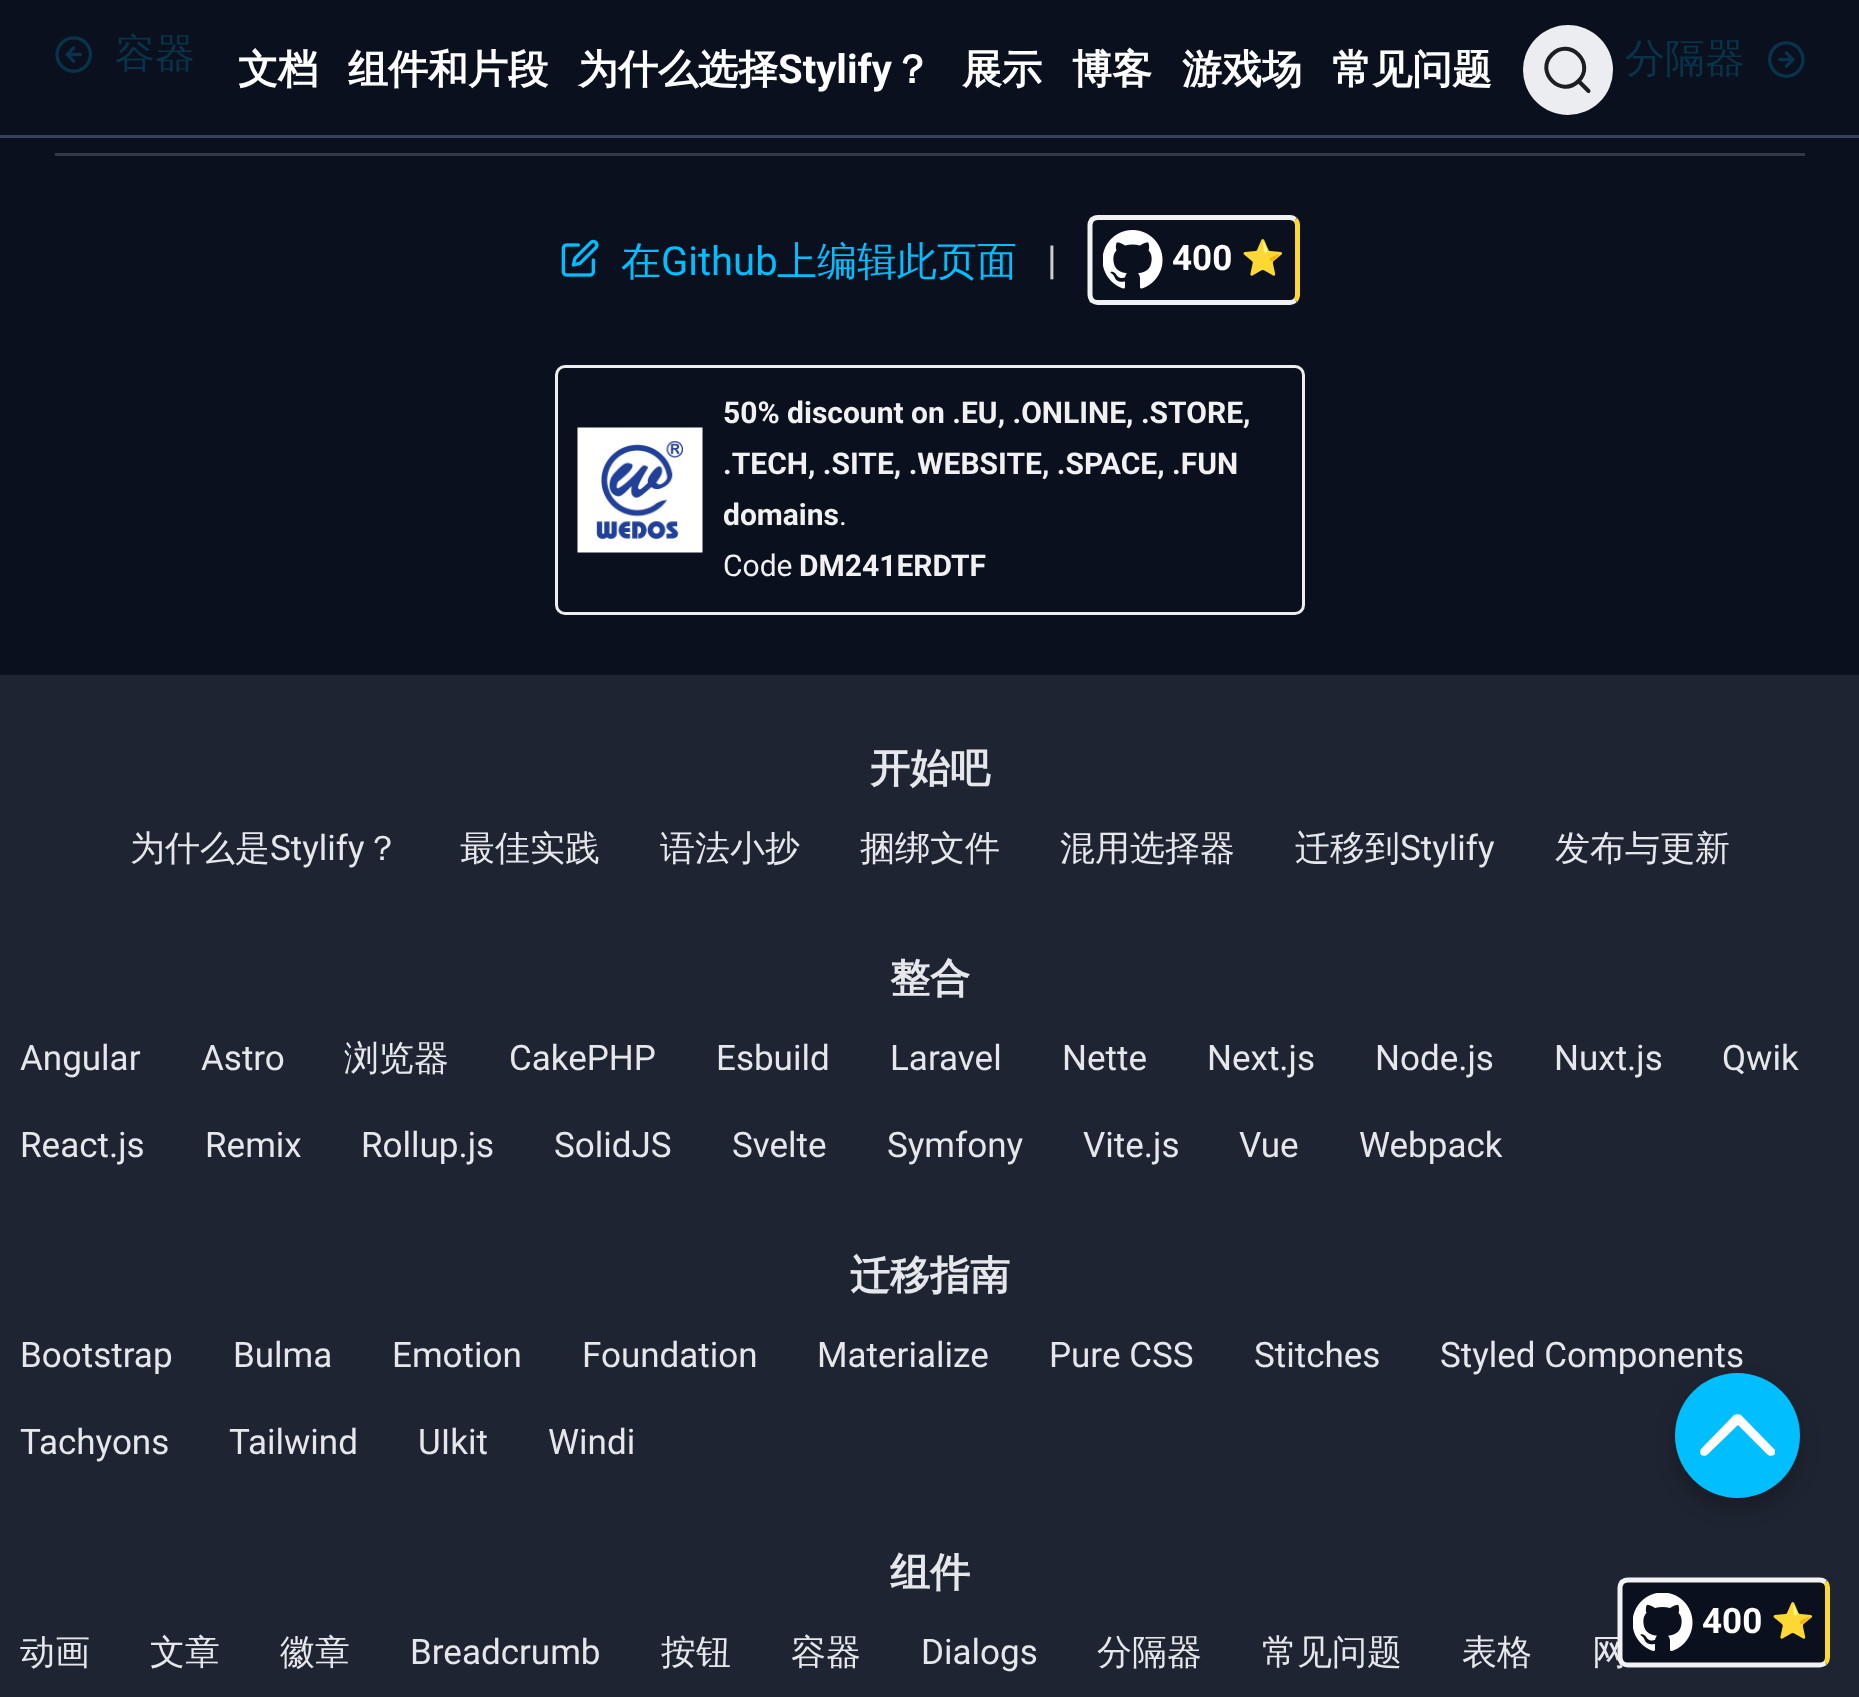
<svg xmlns="http://www.w3.org/2000/svg" width="1859" height="1697" viewBox="0 0 1859 1697">
  <style>
    .t1 { font: 500 40px WenQuanYi Zen Hei; fill: #08334a; }
    .t2 { font: 500 40px WenQuanYi Zen Hei; fill: #01befe; }
    .t3 { font: 40px Roboto; fill: #01befe; }
    .t4 { font: 40px Roboto; fill: #cecfd2; }
    .t5 { font: bold 35px Roboto; fill: #fff; }
    .t6 { font: bold 35px Noto Color Emoji; fill: #fff; }
    .t7 { font: bold 30px Roboto; fill: #f1f1f1; }
    .t8 { font: 30px Roboto; fill: #f1f1f1; }
    .t9 { font: bold 40px WenQuanYi Zen Hei; fill: #fff; }
    .t10 { font: bold 40px Roboto; fill: #fff; }
    .t11 { font: bold 40px WenQuanYi Zen Hei; fill: #e5e7eb; }
    .t12 { font: 500 35px WenQuanYi Zen Hei; fill: #e5e7eb; }
    .t13 { font: 35px Roboto; fill: #e5e7eb; }
  </style>
  <rect width="100%" height="100%" fill="#0a101d"/>
  <image x="55" y="36" width="37" height="37" href="images/1.png"/>
  <text x="115" y="67" class="t1">容器</text>
  <text x="1625" y="72" class="t1">分隔器</text>
  <image x="1768" y="41" width="37" height="37" href="images/2.png"/>
  <rect x="55" y="153" width="1750" height="3" fill="#323845"/>
  <image x="561" y="239" width="38" height="38" href="images/3.png"/>
  <text x="621" y="275" class="t2">在</text>
  <text x="661" y="275" class="t3">Github</text>
  <text x="777" y="275" class="t2">上编辑此页面</text>
  <text x="1047" y="274" class="t4">|</text>
  <path d="M1295.5 219.5C1296.5 221 1297.5 223 1297.5 225V295C1297.5 297 1296.5 299 1295.5 300.5" fill="none" stroke="#fdd835" stroke-width="5"/>
  <path d="M1295.5 300.5C1294 301.5 1292 302.5 1290 302.5H1097.5C1095.5 302.5 1093.5 301.5 1092 300.5C1091 299 1090 297 1090 295V225C1090 223 1091 221 1092 219.5C1093.5 218.5 1095.5 217.5 1097.5 217.5H1290C1292 217.5 1294 218.5 1295.5 219.5" fill="none" stroke="#f1f1f1" stroke-width="5"/>
  <image x="1103" y="230" width="60" height="59" href="images/4.png"/>
  <text x="1172" y="270" class="t5">400</text>
  <text x="1241" y="270" class="t6">⭐</text>
  <rect x="556.5" y="366.5" width="747" height="247" rx="8.5" fill="none" stroke="#eee" stroke-width="3"/>
  <image x="577" y="427" width="126" height="126" href="images/5.png"/>
  <text x="723" y="423" class="t7">50% discount on .EU, .ONLINE, .STORE,</text>
  <text x="723" y="474" class="t7">.TECH, .SITE, .WEBSITE, .SPACE, .FUN</text>
  <text x="723" y="525" class="t7">domains</text>
  <text x="839" y="525" class="t8">.</text>
  <text x="723" y="576" class="t8">Code</text>
  <text x="799" y="576" class="t7">DM241ERDTF</text>
  <rect x="0" y="135" width="1859" height="3" fill="#36425b"/>
  <text x="238" y="83" class="t9">文档</text>
  <text x="348" y="83" class="t9">组件和片段</text>
  <text x="578" y="83" class="t9">为什么选择</text>
  <text x="778" y="83" class="t10">Stylify</text>
  <text x="892" y="83" class="t9">？</text>
  <text x="962" y="83" class="t9">展示</text>
  <text x="1072" y="83" class="t9">博客</text>
  <text x="1182" y="83" class="t9">游戏场</text>
  <text x="1332" y="83" class="t9">常见问题</text>
  <circle cx="1568" cy="70" r="45" fill="#ebedf0"/>
  <path d="M1578.5 81L1588.5 91L1578.5 81C1561 98.5 1534.5 72 1552 54.5C1569.5 37 1596 63.5 1578.5 81Z" fill="none" stroke="#1c1e21" stroke-width="4" stroke-linecap="round" stroke-linejoin="round"/>
  <rect x="0" y="675" width="1859" height="1022" fill="#1e2431"/>
  <text x="870" y="782" class="t11">开始吧</text>
  <text x="130" y="860" class="t12">为什么是</text>
  <text x="270" y="860" class="t13">Stylify</text>
  <text x="365" y="860" class="t12">？</text>
  <text x="460" y="860" class="t12">最佳实践</text>
  <text x="660" y="860" class="t12">语法小抄</text>
  <text x="860" y="860" class="t12">捆绑文件</text>
  <text x="1060" y="860" class="t12">混用选择器</text>
  <text x="1295" y="860" class="t12">迁移到</text>
  <text x="1400" y="860" class="t13">Stylify</text>
  <text x="1555" y="860" class="t12">发布与更新</text>
  <text x="890" y="992" class="t11">整合</text>
  <text x="20" y="1070" class="t13">Angular</text>
  <text x="201" y="1070" class="t13">Astro</text>
  <text x="344" y="1070" class="t12">浏览器</text>
  <text x="509" y="1070" class="t13">CakePHP</text>
  <text x="716" y="1070" class="t13">Esbuild</text>
  <text x="890" y="1070" class="t13">Laravel</text>
  <text x="1062" y="1070" class="t13">Nette</text>
  <text x="1207" y="1070" class="t13">Next.js</text>
  <text x="1375" y="1070" class="t13">Node.js</text>
  <text x="1554" y="1070" class="t13">Nuxt.js</text>
  <text x="1722" y="1070" class="t13">Qwik</text>
  <text x="20" y="1157" class="t13">React.js</text>
  <text x="205" y="1157" class="t13">Remix</text>
  <text x="361" y="1157" class="t13">Rollup.js</text>
  <text x="554" y="1157" class="t13">SolidJS</text>
  <text x="732" y="1157" class="t13">Svelte</text>
  <text x="887" y="1157" class="t13">Symfony</text>
  <text x="1083" y="1157" class="t13">Vite.js</text>
  <text x="1239" y="1157" class="t13">Vue</text>
  <text x="1359" y="1157" class="t13">Webpack</text>
  <text x="850" y="1289" class="t11">迁移指南</text>
  <text x="20" y="1367" class="t13">Bootstrap</text>
  <text x="233" y="1367" class="t13">Bulma</text>
  <text x="392" y="1367" class="t13">Emotion</text>
  <text x="582" y="1367" class="t13">Foundation</text>
  <text x="817" y="1367" class="t13">Materialize</text>
  <text x="1049" y="1367" class="t13">Pure CSS</text>
  <text x="1254" y="1367" class="t13">Stitches</text>
  <text x="1440" y="1367" class="t13">Styled Components</text>
  <text x="20" y="1454" class="t13">Tachyons</text>
  <text x="229" y="1454" class="t13">Tailwind</text>
  <text x="418" y="1454" class="t13">UIkit</text>
  <text x="548" y="1454" class="t13">Windi</text>
  <text x="890" y="1586" class="t11">组件</text>
  <text x="20" y="1664" class="t12">动画</text>
  <text x="150" y="1664" class="t12">文章</text>
  <text x="280" y="1664" class="t12">徽章</text>
  <text x="410" y="1664" class="t13">Breadcrumb</text>
  <text x="661" y="1664" class="t12">按钮</text>
  <text x="791" y="1664" class="t12">容器</text>
  <text x="921" y="1664" class="t13">Dialogs</text>
  <text x="1097" y="1664" class="t12">分隔器</text>
  <text x="1262" y="1664" class="t12">常见问题</text>
  <text x="1462" y="1664" class="t12">表格</text>
  <text x="1592" y="1664" class="t12">网</text>
  <rect x="1675" y="1383" width="125" height="125" rx="62.5" fill="#0000003b" filter="blur(10px)"/>
  <circle cx="1737.5" cy="1435.5" r="62.5" fill="#01befe"/>
  <path d="M1775 1452C1775 1453 1775 1454 1774 1455C1772 1456 1769 1456 1768 1455L1738 1425L1707 1455C1706 1456 1703 1456 1701 1455C1700 1453 1700 1450 1701 1449L1734 1415C1736 1414 1739 1414 1741 1415L1774 1449C1775 1449 1775 1450 1775 1452Z" fill="#fff"/>
  <rect x="1618" y="1578" width="212" height="90" rx="10" fill="#0a101d"/>
  <path d="M1825.5 1582C1826.5 1583.5 1827.5 1585.5 1827.5 1587.5V1657.5C1827.5 1659.5 1826.5 1661.5 1825.5 1663" fill="none" stroke="#fdd835" stroke-width="5"/>
  <path d="M1825.5 1663C1824 1664 1822 1665 1820 1665H1627.5C1625.5 1665 1623.5 1664 1622 1663C1621 1661.5 1620 1659.5 1620 1657.5V1587.5C1620 1585.5 1621 1583.5 1622 1582C1623.5 1581 1625.5 1580 1627.5 1580H1820C1822 1580 1824 1581 1825.5 1582" fill="none" stroke="#f1f1f1" stroke-width="5"/>
  <image x="1633" y="1593" width="60" height="58" href="images/6.png"/>
  <text x="1702" y="1633" class="t5">400</text>
  <text x="1771" y="1633" class="t6">⭐</text>
</svg>
